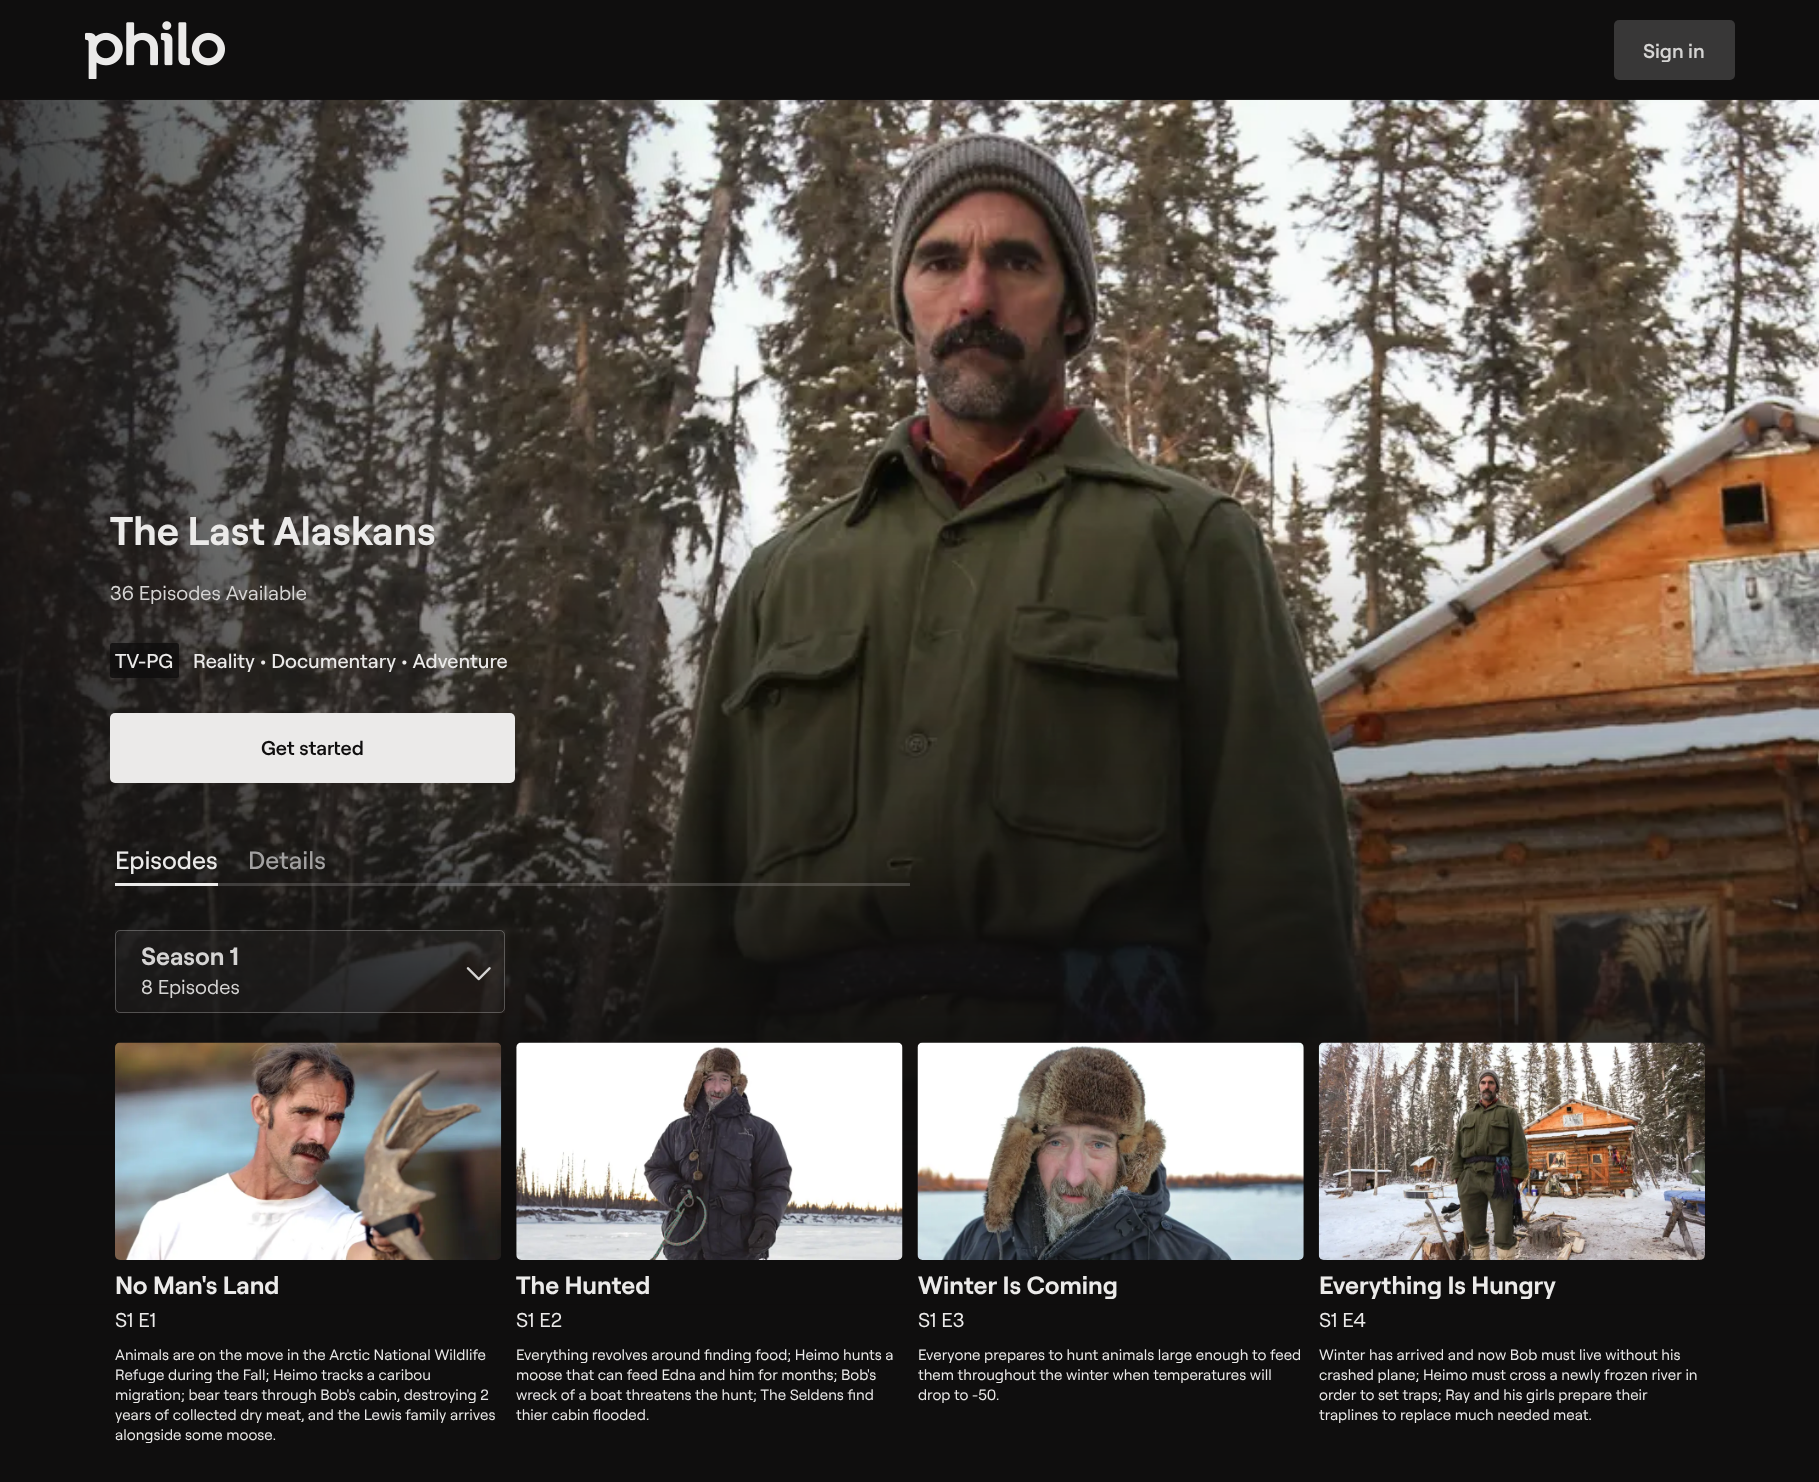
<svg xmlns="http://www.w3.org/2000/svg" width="1819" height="1482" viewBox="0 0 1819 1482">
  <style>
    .t1 { font: 600 20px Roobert; fill: #d5d4d3; }
    .t2 { font: bold 40px Roobert; fill: #ebeae9; }
    .t3 { font: 20px Roobert; fill: #d5d4d3; }
    .t4 { font: 500 20px Roobert; fill: #ebeae9; }
    .t5 { font: 600 20px Roobert; fill: #0f0e0e; }
    .t6 { font: 500 25px Roobert; fill: #ebeae9; }
    .t7 { font: 500 25px Roobert; fill: #a2a1a1; }
    .t8 { font: bold 25px Roobert; fill: #d5d4d3; }
    .t9 { font: bold 25px Roobert; fill: #ebeae9; }
    .t10 { font: 20px Roobert; fill: #ebeae9; }
    .t11 { font: 15px Roobert; fill: #ebeae9; }
  </style>
  <rect width="100%" height="100%" fill="#0f0e0e"/>
  <image x="0" y="98" width="1819" height="1373" href="images/2.png"/>
  <rect x="0" y="98" width="1819" height="2" fill="#0f0e0eed"/>
  <image x="85" y="21" width="140" height="58" href="images/1.png"/>
  <rect x="1614" y="20" width="121" height="60" rx="5" fill="#383737"/>
  <text x="1643" y="58" class="t1">Sign in</text>
  <text x="110" y="545" class="t2">The Last Alaskans</text>
  <text x="110" y="600" class="t3">36 Episodes Available</text>
  <rect x="110" y="643" width="69" height="35" rx="2.5" fill="#0f0e0ed1"/>
  <text x="115" y="668" class="t4">TV-PG</text>
  <text x="193" y="668" class="t4">Reality • Documentary • Adventure</text>
  <rect x="110" y="713" width="405" height="70" rx="5" fill="#ebeae9"/>
  <text x="261" y="755" class="t5">Get started</text>
  <text x="115" y="869" class="t6">Episodes</text>
  <rect x="115" y="883" width="103" height="3" fill="#ebeae9"/>
  <text x="248" y="869" class="t7">Details</text>
  <rect x="218" y="883" width="692" height="3" fill="#f3f3f32e"/>
  <rect x="115" y="930" width="390" height="83" fill="#e8e8e80a"/>
  <rect x="115.5" y="930.5" width="389" height="82" rx="4.5" fill="none" stroke="#e9e8e847"/>
  <text x="141" y="965" class="t8">Season 1</text>
  <text x="141" y="994" class="t3">8 Episodes</text>
  <image x="466" y="967" width="25" height="14" href="images/3.png"/>
  <image x="115" y="1042" width="387" height="218" href="images/4.png"/>
  <text x="115" y="1294" class="t9">No Man's Land</text>
  <text x="115" y="1327" class="t10">S1 E1</text>
  <text x="115" y="1360" class="t11">Animals are on the move in the Arctic National Wildlife</text>
  <text x="115" y="1380" class="t11">Refuge during the Fall; Heimo tracks a caribou</text>
  <text x="115" y="1400" class="t11">migration; bear tears through Bob's cabin, destroying 2</text>
  <text x="115" y="1420" class="t11">years of collected dry meat, and the Lewis family arrives</text>
  <text x="115" y="1440" class="t11">alongside some moose.</text>
  <image x="516" y="1042" width="387" height="218" href="images/5.png"/>
  <text x="516" y="1294" class="t9">The Hunted</text>
  <text x="516" y="1327" class="t10">S1 E2</text>
  <text x="516" y="1360" class="t11">Everything revolves around finding food; Heimo hunts a</text>
  <text x="516" y="1380" class="t11">moose that can feed Edna and him for months; Bob's</text>
  <text x="516" y="1400" class="t11">wreck of a boat threatens the hunt; The Seldens find</text>
  <text x="516" y="1420" class="t11">thier cabin flooded.</text>
  <image x="917" y="1042" width="387" height="218" href="images/6.png"/>
  <text x="918" y="1294" class="t9">Winter Is Coming</text>
  <text x="918" y="1327" class="t10">S1 E3</text>
  <text x="918" y="1360" class="t11">Everyone prepares to hunt animals large enough to feed</text>
  <text x="918" y="1380" class="t11">them throughout the winter when temperatures will</text>
  <text x="918" y="1400" class="t11">drop to -50.</text>
  <image x="1318" y="1042" width="387" height="218" href="images/7.png"/>
  <text x="1319" y="1294" class="t9">Everything Is Hungry</text>
  <text x="1319" y="1327" class="t10">S1 E4</text>
  <text x="1319" y="1360" class="t11">Winter has arrived and now Bob must live without his</text>
  <text x="1319" y="1380" class="t11">crashed plane; Heimo must cross a newly frozen river in</text>
  <text x="1319" y="1400" class="t11">order to set traps; Ray and his girls prepare their</text>
  <text x="1319" y="1420" class="t11">traplines to replace much needed meat.</text>
</svg>
